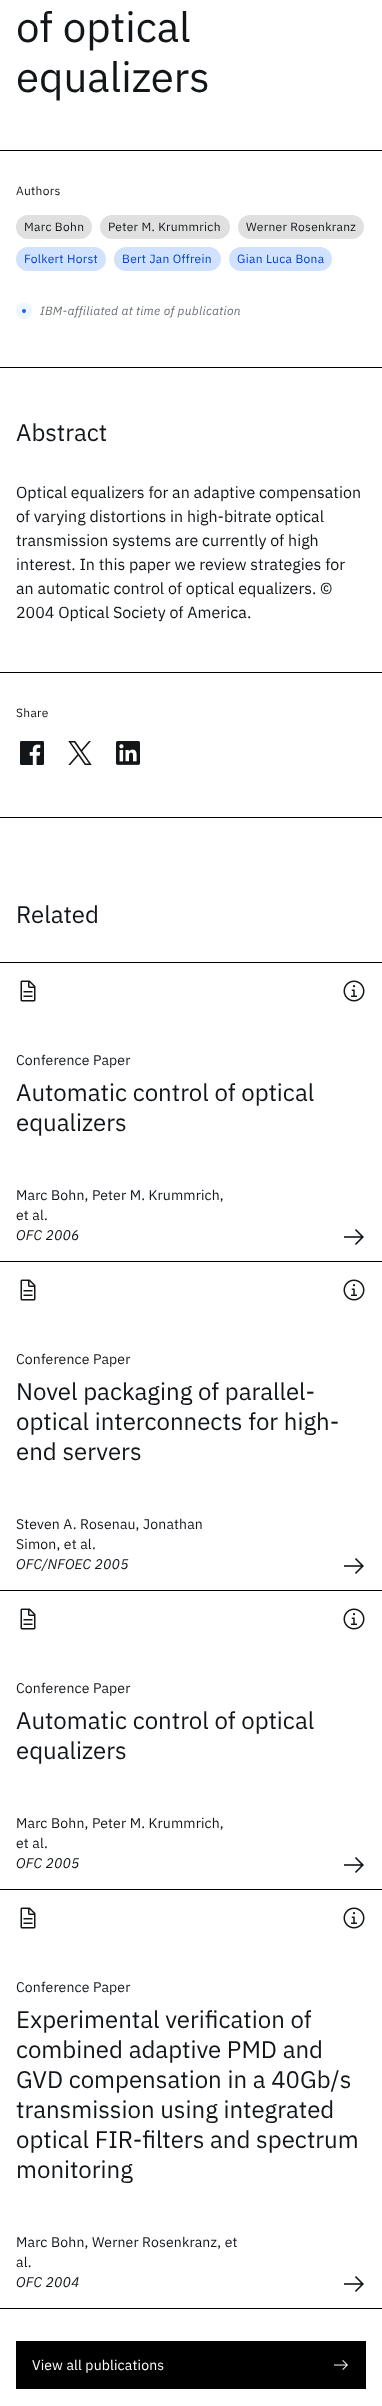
<svg xmlns="http://www.w3.org/2000/svg" width="382" height="2406" viewBox="0 0 382 2406">
  <style>
    .t1 { font: 42px IBM Plex Sans; fill: #121619; }
    .t2 { font: 24px IBM Plex Sans; fill: #121619; }
    .t3 { font: 16px IBM Plex Sans; fill: #121619; }
    .t4 { font: 14px IBM Plex Sans; letter-spacing: 0.15px; fill: #121619; }
    .t5 { font: italic 14px IBM Plex Sans; letter-spacing: 0.15px; fill: #121619; }
    .t6 { font: 14px IBM Plex Sans; letter-spacing: 0.15px; fill: #fff; }
    .t7 { font: 12px IBM Plex Sans; letter-spacing: 0.3px; fill: #121619; }
    .t8 { font: 12px IBM Plex Sans; letter-spacing: 0.3px; fill: #0043ce; }
    .t9 { font: italic 12px IBM Plex Sans; letter-spacing: 0.3px; fill: #697077; }
  </style>
  <rect width="100%" height="100%" fill="#fff"/>
  <rect x="0" y="150" width="382" height="1" fill="#000"/>
  <text x="16" y="42" class="t1">of optical</text>
  <text x="16" y="92" class="t1">equalizers</text>
  <rect x="0" y="672" width="382" height="1" fill="#000"/>
  <text x="16" y="441" class="t2">Abstract</text>
  <text x="16" y="498" class="t3">Optical equalizers for an adaptive compensation</text>
  <text x="16" y="522" class="t3">of varying distortions in high-bitrate optical</text>
  <text x="16" y="546" class="t3">transmission systems are currently of high</text>
  <text x="16" y="570" class="t3">interest. In this paper we review strategies for</text>
  <text x="16" y="594" class="t3">an automatic control of optical equalizers. ©</text>
  <text x="16" y="618" class="t3">2004 Optical Society of America.</text>
  <text x="16" y="923" class="t2">Related</text>
  <rect x="0" y="962" width="382" height="1" fill="#000"/>
  <image x="20" y="980" width="16" height="22" href="images/1.png"/>
  <image x="343" y="980" width="22" height="22" href="images/2.png"/>
  <text x="16" y="1065" class="t4">Conference Paper</text>
  <text x="16" y="1101" class="t2">Automatic control of optical</text>
  <text x="16" y="1131" class="t2">equalizers</text>
  <image x="344" y="1229" width="20" height="16" href="images/3.png"/>
  <text x="16" y="1200" class="t4">Marc Bohn, Peter M. Krummrich,</text>
  <text x="16" y="1220" class="t4">et al.</text>
  <text x="16" y="1240" class="t5">OFC 2006</text>
  <rect x="0" y="1261" width="382" height="1" fill="#000"/>
  <image x="20" y="1279" width="16" height="22" href="images/1.png"/>
  <image x="343" y="1279" width="22" height="22" href="images/2.png"/>
  <text x="16" y="1364" class="t4">Conference Paper</text>
  <text x="16" y="1400" class="t2">Novel packaging of parallel-</text>
  <text x="16" y="1430" class="t2">optical interconnects for high-</text>
  <text x="16" y="1460" class="t2">end servers</text>
  <image x="344" y="1558" width="20" height="16" href="images/3.png"/>
  <text x="16" y="1529" class="t4">Steven A. Rosenau, Jonathan</text>
  <text x="16" y="1549" class="t4">Simon, et al.</text>
  <text x="16" y="1569" class="t5">OFC/NFOEC 2005</text>
  <rect x="0" y="1590" width="382" height="1" fill="#000"/>
  <image x="20" y="1608" width="16" height="22" href="images/1.png"/>
  <image x="343" y="1608" width="22" height="22" href="images/2.png"/>
  <text x="16" y="1693" class="t4">Conference Paper</text>
  <text x="16" y="1729" class="t2">Automatic control of optical</text>
  <text x="16" y="1759" class="t2">equalizers</text>
  <image x="344" y="1857" width="20" height="16" href="images/3.png"/>
  <text x="16" y="1828" class="t4">Marc Bohn, Peter M. Krummrich,</text>
  <text x="16" y="1848" class="t4">et al.</text>
  <text x="16" y="1868" class="t5">OFC 2005</text>
  <rect x="0" y="1889" width="382" height="1" fill="#000"/>
  <rect x="0" y="2308" width="382" height="1" fill="#000"/>
  <image x="20" y="1907" width="16" height="22" href="images/1.png"/>
  <image x="343" y="1907" width="22" height="22" href="images/2.png"/>
  <text x="16" y="1992" class="t4">Conference Paper</text>
  <text x="16" y="2028" class="t2">Experimental verification of</text>
  <text x="16" y="2058" class="t2">combined adaptive PMD and</text>
  <text x="16" y="2088" class="t2">GVD compensation in a 40Gb/s</text>
  <text x="16" y="2118" class="t2">transmission using integrated</text>
  <text x="16" y="2148" class="t2">optical FIR-filters and spectrum</text>
  <text x="16" y="2178" class="t2">monitoring</text>
  <image x="344" y="2276" width="20" height="16" href="images/3.png"/>
  <text x="16" y="2247" class="t4">Marc Bohn, Werner Rosenkranz, et</text>
  <text x="16" y="2267" class="t4">al.</text>
  <text x="16" y="2287" class="t5">OFC 2004</text>
  <rect x="16" y="2341" width="350" height="48" fill="#000"/>
  <text x="32" y="2370" class="t6">View all publications</text>
  <image x="334" y="2360" width="14" height="10" href="images/4.png"/>
  <rect x="0" y="367" width="382" height="1" fill="#000"/>
  <text x="16" y="195" class="t7">Authors</text>
  <rect x="16" y="215" width="76" height="24" rx="12" fill="#e0e0e0"/>
  <text x="24" y="231" class="t7">Marc Bohn</text>
  <rect x="100" y="215" width="130" height="24" rx="12" fill="#e0e0e0"/>
  <text x="108" y="231" class="t7">Peter M. Krummrich</text>
  <rect x="238" y="215" width="126" height="24" rx="12" fill="#e0e0e0"/>
  <text x="246" y="231" class="t7">Werner Rosenkranz</text>
  <rect x="16" y="247" width="90" height="24" rx="12" fill="#d0e2ff"/>
  <text x="24" y="263" class="t8">Folkert Horst</text>
  <rect x="114" y="247" width="107" height="24" rx="12" fill="#d0e2ff"/>
  <text x="122" y="263" class="t8">Bert Jan Offrein</text>
  <rect x="229" y="247" width="103" height="24" rx="12" fill="#d0e2ff"/>
  <text x="237" y="263" class="t8">Gian Luca Bona</text>
  <circle cx="24" cy="311" r="8" fill="#edf5ff"/>
  <circle cx="24" cy="311" r="2" fill="#0f62fe"/>
  <text x="40" y="315" class="t9">IBM-affiliated at time of publication</text>
  <rect x="0" y="817" width="382" height="1" fill="#000"/>
  <text x="16" y="717" class="t7">Share</text>
  <image x="20" y="741" width="24" height="24" href="images/5.png"/>
  <image x="68" y="741" width="24" height="24" href="images/6.png"/>
  <image x="116" y="741" width="24" height="24" href="images/7.png"/>
</svg>
